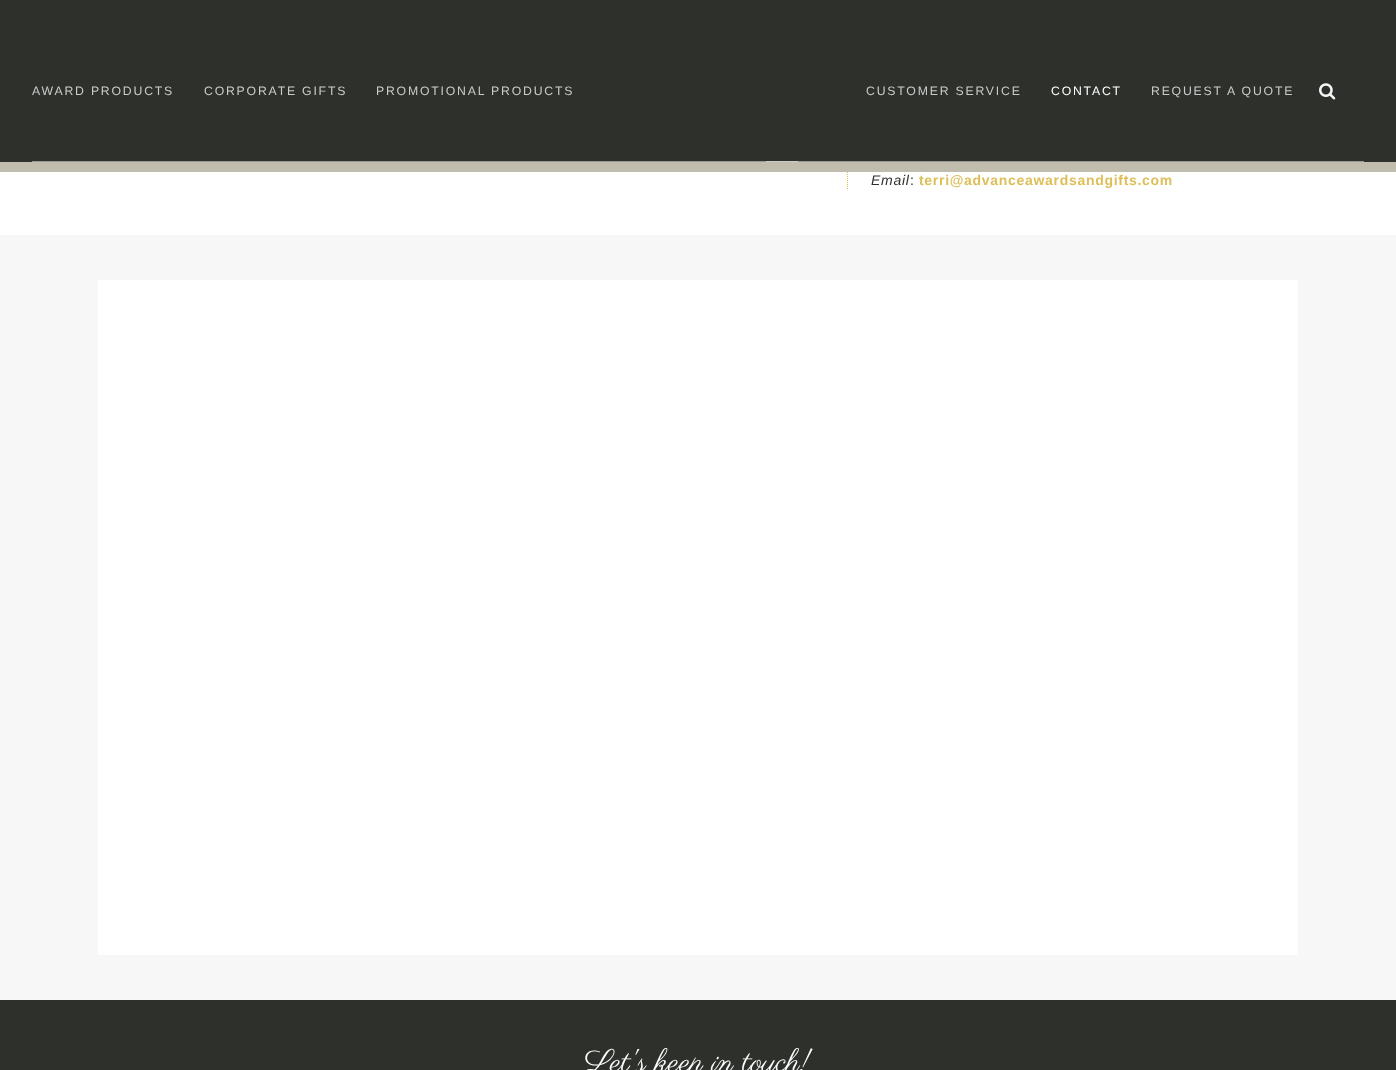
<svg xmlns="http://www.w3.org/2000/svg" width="1396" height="1070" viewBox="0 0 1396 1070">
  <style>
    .t1 { font: 12.25px Liberation Sans; letter-spacing: 1.8px; fill: #cbcbca; }
    .t2 { font: 12.25px Liberation Sans; letter-spacing: 1.8px; fill: #fff; }
    .t3 { font: italic 14px Liberation Sans; letter-spacing: 0.7px; fill: #2e312b; }
    .t4 { font: 14px Liberation Sans; letter-spacing: 0.7px; fill: #2e312b; }
    .t5 { font: bold 14px Liberation Sans; letter-spacing: 0.7px; fill: #ddbf59; }
    .t6 { font: 31.25px Parisienne; fill: #fff; }
  </style>
  <rect width="100%" height="100%" fill="#fff"/>
  <path d="M847.5 74V190" fill="none" stroke="#ddbf59" stroke-dasharray="1 1"/>
  <rect x="0" y="0" width="1396" height="162" fill="#2e312b"/>
  <rect x="798" y="161" width="566" height="1" fill="#979895"/>
  <rect x="0" y="162" width="1396" height="10" fill="#c0bdae"/>
  <rect x="32" y="161" width="734" height="1" fill="#979895"/>
  <text x="32" y="95" class="t1">AWARD PRODUCTS</text>
  <text x="204" y="95" class="t1">CORPORATE GIFTS</text>
  <text x="376" y="95" class="t1">PROMOTIONAL PRODUCTS</text>
  <text x="866" y="95" class="t1">CUSTOMER SERVICE</text>
  <text x="1051" y="95" class="t2">CONTACT</text>
  <text x="1151" y="95" class="t1">REQUEST A QUOTE</text>
  <image x="1319" y="83" width="17" height="17" href="images/1.png"/>
  <rect x="766" y="161" width="32" height="1" fill="#cbccca"/>
  <text x="871" y="185" class="t3">Email</text>
  <text x="910" y="185" class="t4">:</text>
  <text x="919" y="185" class="t5">terri@advanceawardsandgifts.com</text>
  <rect x="0" y="235" width="1396" height="765" fill="#f7f7f7"/>
  <rect x="98" y="280" width="1200" height="675" fill="#fff"/>
  <rect x="0" y="1000" width="1396" height="70" fill="#2e312b"/>
  <text x="585" y="1071" class="t6">Let's keep in touch!</text>
</svg>
